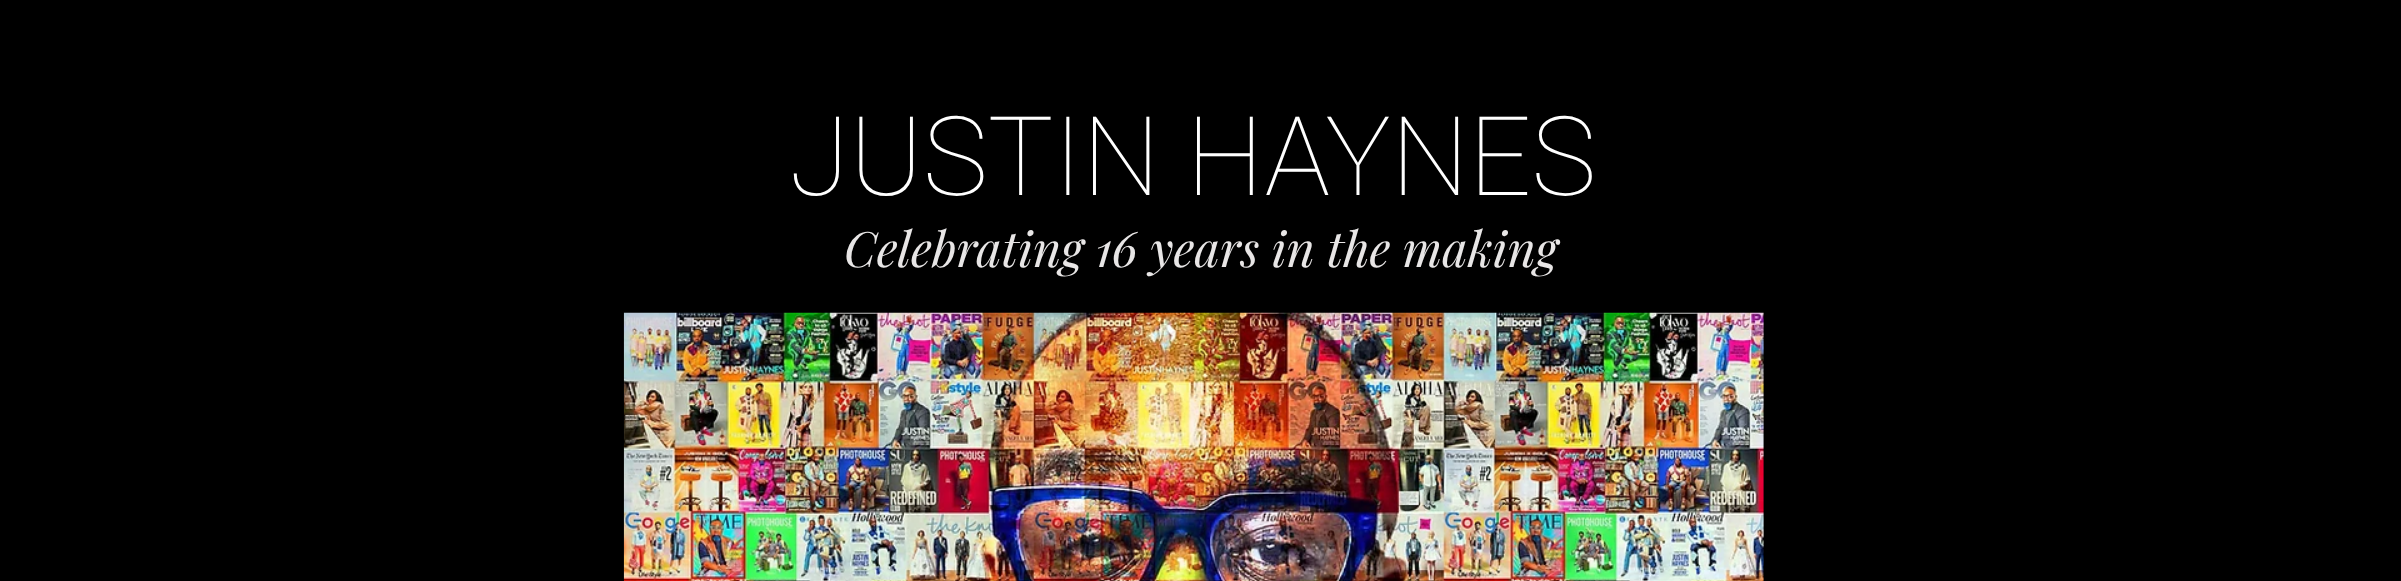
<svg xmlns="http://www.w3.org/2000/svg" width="2401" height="581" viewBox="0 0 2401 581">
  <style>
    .t1 { font: 100 110px Roboto; fill: #fff; }
    .t2 { font: italic 48.75px Playfair Display; fill: #e8e6e6; }
  </style>
  <rect width="100%" height="100%" fill="#000"/>
  <text x="789" y="195" class="t1">JUSTIN HAYNES</text>
  <text x="844" y="267" class="t2">Celebrating 16 years in the making</text>
  <image x="623" y="312" width="1141" height="269" href="images/1.png"/>
</svg>
